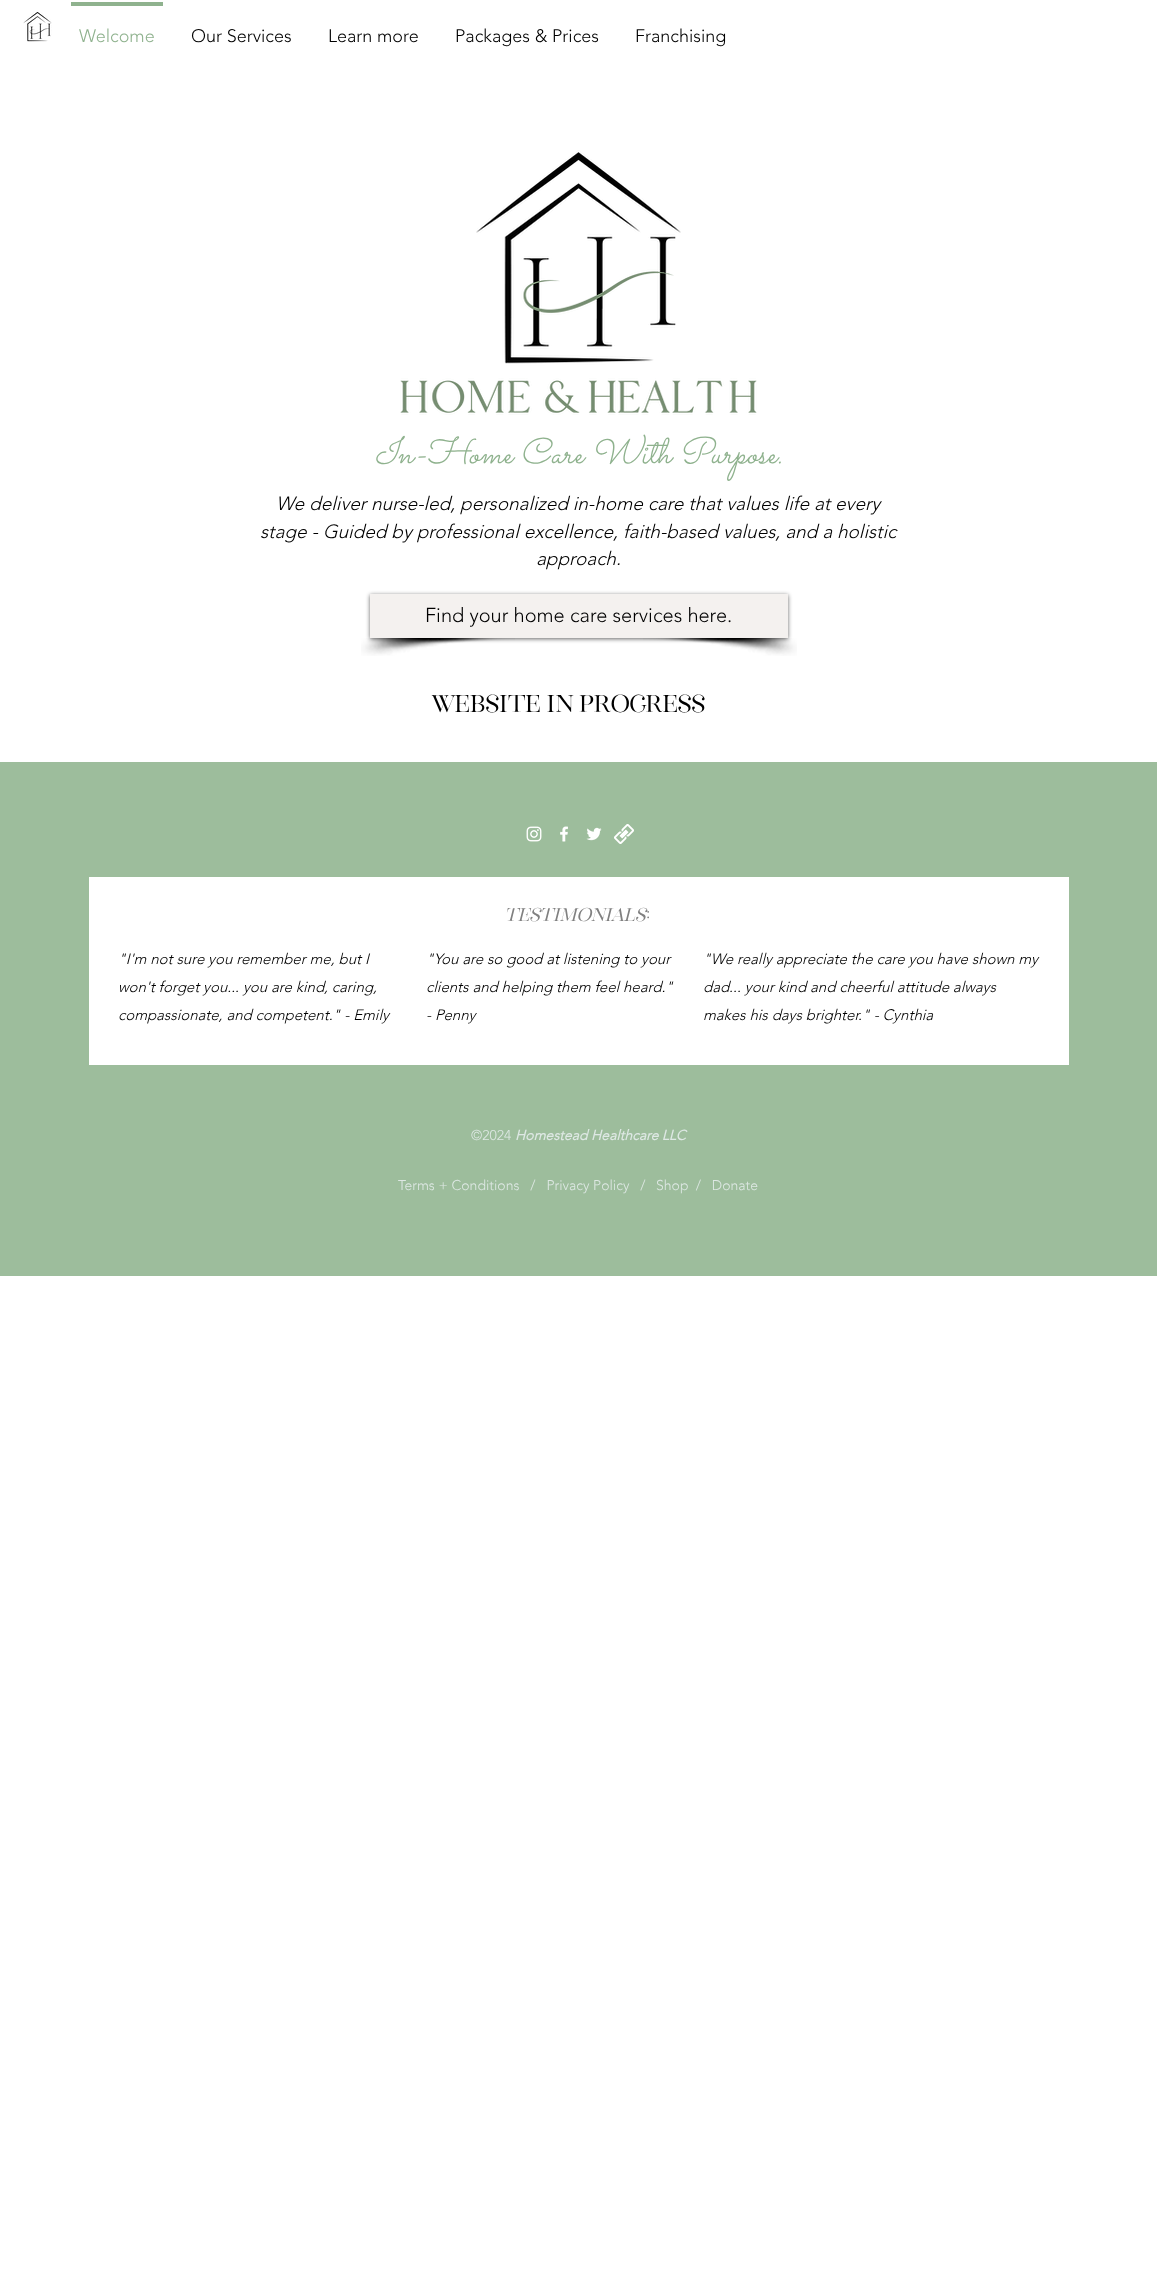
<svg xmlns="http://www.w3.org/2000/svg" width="1157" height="2279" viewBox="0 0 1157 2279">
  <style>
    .t1 { font: 300 18px 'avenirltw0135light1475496'; fill: #8fb28e; }
    .t2 { font: 300 18px 'avenirltw0135light1475496'; fill: #000; }
    .t3 { font: italic 36px Sacramento; fill: #8fb28e; }
    .t4 { font: italic 300 19px 'avenirltw0135light1475496'; fill: #000; }
    .t5 { font: 300 20px 'avenirltw0135light1475496'; fill: #000; }
    .t6 { font: 29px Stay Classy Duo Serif; fill: #000; }
    .t7 { font: italic 22px Stay Classy Duo Serif; fill: #808080; }
    .t8 { font: 22px Stay Classy Duo Serif; fill: #808080; }
    .t9 { font: italic 300 15px 'avenirltw0135light1475496'; fill: #000; }
    .t10 { font: 300 14px 'avenirltw0135light1475496'; fill: #dee8e4; }
    .t11 { font: italic bold 14px 'avenirltw0135light1475496'; fill: #dee8e4; }
  </style>
  <rect width="100%" height="100%" fill="#fff"/>
  <image x="23" y="12" width="29" height="30" href="images/1.png"/>
  <rect x="71" y="2" width="92" height="4" fill="#8fb28e"/>
  <text x="79" y="42" class="t1">Welcome</text>
  <text x="191" y="42" class="t2">Our Services</text>
  <text x="328" y="42" class="t2">Learn more</text>
  <text x="455" y="42" class="t2">Packages &amp; Prices</text>
  <text x="635" y="42" class="t2">Franchising</text>
  <image x="400" y="150" width="357" height="265" href="images/2.png"/>
  <text x="375" y="463" class="t3">In-Home Care With Purpose.</text>
  <text x="276" y="510" class="t4">We deliver nurse-led, personalized in-home care that values life at every</text>
  <text x="260" y="538" class="t4">stage - Guided by professional excellence, faith-based values, and a holistic</text>
  <text x="536" y="565" class="t4">approach.</text>
  <image x="361" y="638" width="154" height="18" href="images/3.png"/>
  <image x="643" y="638" width="154" height="18" href="images/4.png"/>
  <rect x="370" y="595" width="418" height="44" fill="#00000099" filter="blur(2px)"/>
  <rect x="370" y="594" width="418" height="44" fill="#f4f1ef"/>
  <text x="425" y="622" class="t5">Find your home care services here.</text>
  <text x="432" y="712" class="t6">Website in progress</text>
  <rect x="0" y="762" width="1157" height="514" fill="#9dbd9c"/>
  <image x="526" y="826" width="16" height="16" href="images/5.png"/>
  <image x="560" y="826" width="8" height="16" href="images/6.png"/>
  <image x="586" y="827" width="16" height="14" href="images/7.png"/>
  <image x="614" y="824" width="20" height="20" href="images/8.png"/>
  <rect x="89" y="877" width="980" height="188" fill="#fff"/>
  <text x="504" y="921" class="t7">TESTIMONIALS</text>
  <text x="645" y="921" class="t8">:</text>
  <text x="118" y="964" class="t9">"I'm not sure you remember me, but I</text>
  <text x="118" y="992" class="t9">won't forget you... you are kind, caring,</text>
  <text x="118" y="1020" class="t9">compassionate, and competent." - Emily</text>
  <text x="426" y="964" class="t9">"You are so good at listening to your</text>
  <text x="426" y="992" class="t9">clients and helping them feel heard."</text>
  <text x="426" y="1020" class="t9">- Penny</text>
  <text x="703" y="964" class="t9">"We really appreciate the care you have shown my</text>
  <text x="703" y="992" class="t9">dad... your kind and cheerful attitude always</text>
  <text x="703" y="1020" class="t9">makes his days brighter." - Cynthia</text>
  <text x="471" y="1140" class="t10">©2024</text>
  <text x="515" y="1140" class="t11">Homestead Healthcare LLC</text>
  <text x="398" y="1190" class="t10" xml:space="preserve">Terms + Conditions   /   Privacy Policy   /</text>
  <text x="656" y="1190" class="t10" xml:space="preserve">Shop  /   Donate</text>
</svg>
